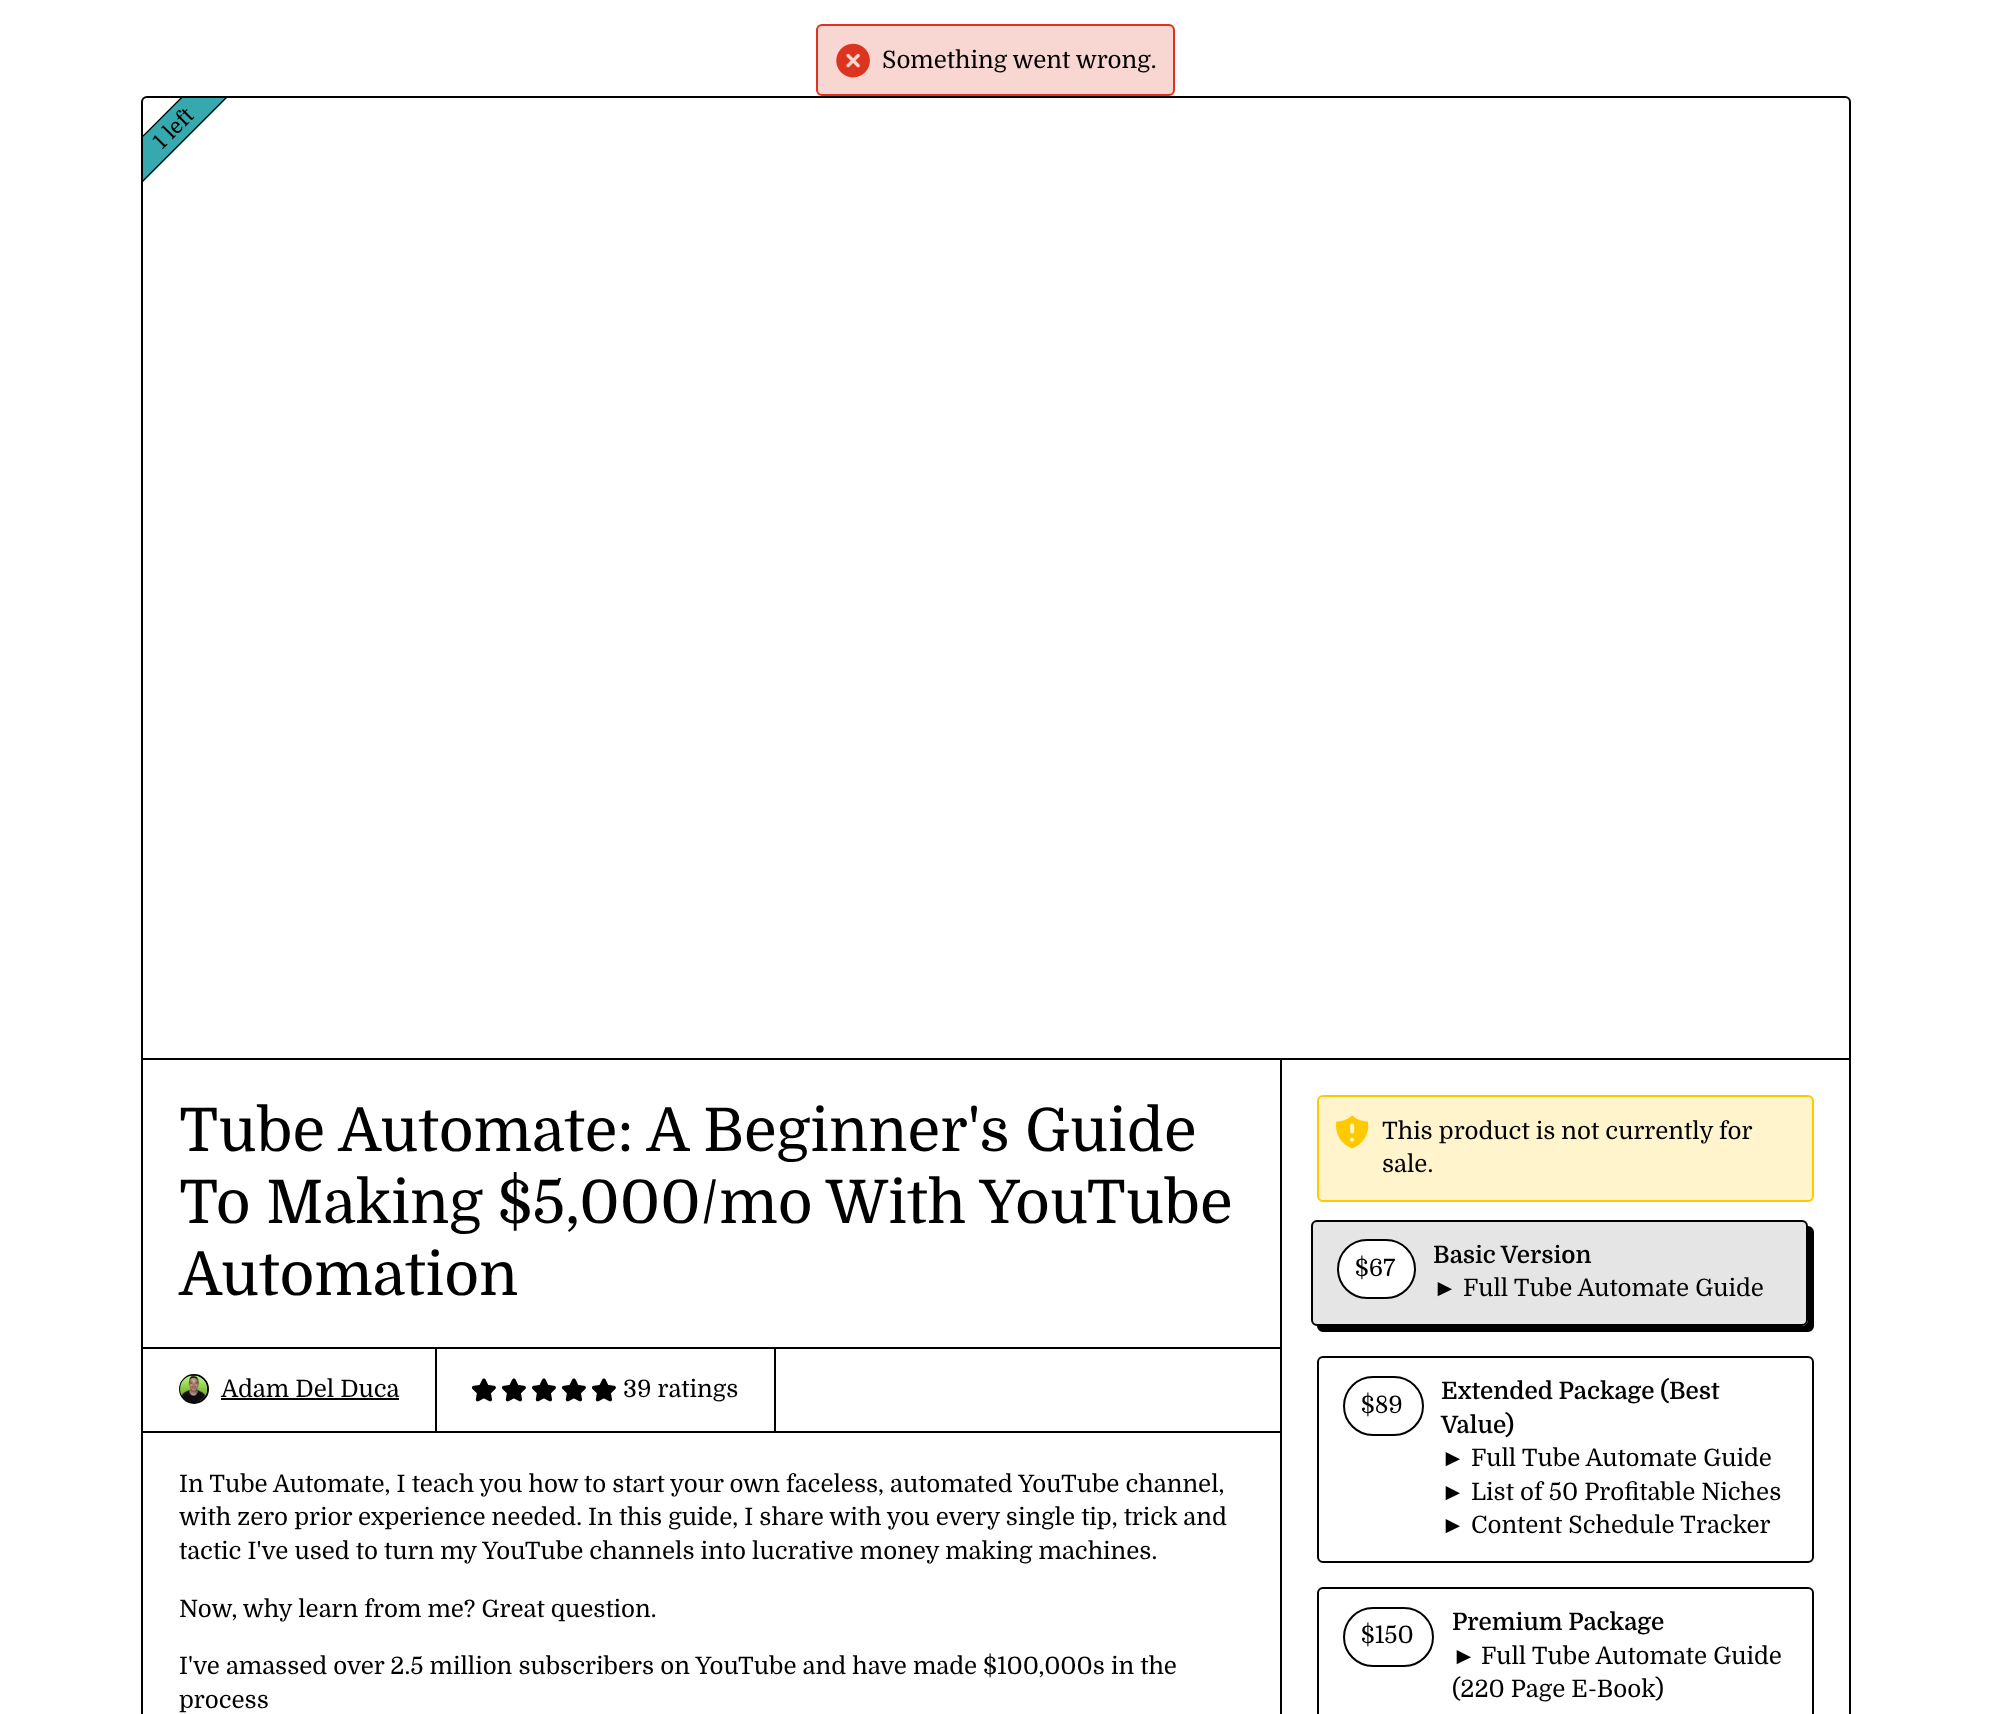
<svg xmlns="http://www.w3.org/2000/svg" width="1991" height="1714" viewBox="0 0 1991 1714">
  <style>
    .t1 { font: 24px Domine; fill: #000; }
    .t2 { font: 21px Domine; fill: #000; }
    .t3 { font: 60px Domine; fill: #000; }
    .t4 { font: 600 24px Domine; fill: #000; }
    .t5 { font: 24px Liberation Serif; fill: #000; }
  </style>
  <defs>
    <clipPath id="clip1"><path d="M142.5 135.5L180.5 97.5H227.5L142.5 182.5Z"/></clipPath>
  </defs>
  <rect width="100%" height="100%" fill="#fff"/>
  <rect x="817" y="25" width="357" height="70" rx="5" fill="#f8d6d2" stroke="#dc341e" stroke-width="2"/>
  <image x="836" y="43" width="34" height="35" href="images/1.png"/>
  <text x="882" y="68" class="t1">Something went wrong.</text>
  <rect x="142" y="97" width="1708" height="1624" rx="5" fill="none" stroke="#000" stroke-width="2"/>
  <path d="M143 136L181 98H227L143 182Z" fill="#36a9ae"/>
  <g clip-path="url(#clip1)">
    <path d="M120 159L204 75L226.5 97.5L142.5 181.5Z" fill="none" stroke="#000" stroke-width="1.5"/>
  </g>
  <text x="172" y="140" transform="rotate(-45 172 140)" class="t2">left</text>
  <text x="162" y="150" transform="rotate(-45 162 150)" class="t2">1</text>
  <rect x="1280" y="1059" width="2" height="655" fill="#000"/>
  <rect x="143" y="1058" width="1707" height="2" fill="#000"/>
  <text x="179" y="1151" class="t3">Tube Automate: A Beginner's Guide</text>
  <text x="179" y="1223" class="t3">To Making $5,000/mo With YouTube</text>
  <text x="179" y="1295" class="t3">Automation</text>
  <rect x="776" y="1347" width="504" height="2" fill="#000"/>
  <rect x="142" y="1348" width="294" height="84" fill="none" stroke="#000" stroke-width="2"/>
  <circle cx="194" cy="1389" r="14" fill="none" stroke="#000" stroke-width="2"/>
  <image x="180" y="1375" width="27" height="27" href="images/2.png"/>
  <text x="221" y="1397" class="t1">Adam Del Duca</text>
  <rect x="221" y="1398" width="178" height="2" fill="#000"/>
  <rect x="436" y="1348" width="339" height="84" fill="none" stroke="#000" stroke-width="2"/>
  <image x="471" y="1378" width="25" height="24" href="images/3.png"/>
  <image x="501" y="1378" width="25" height="24" href="images/3.png"/>
  <image x="531" y="1378" width="25" height="24" href="images/3.png"/>
  <image x="561" y="1378" width="25" height="24" href="images/3.png"/>
  <image x="591" y="1378" width="25" height="24" href="images/3.png"/>
  <text x="623" y="1397" class="t1">39 ratings</text>
  <rect x="776" y="1431" width="504" height="2" fill="#000"/>
  <text x="179" y="1492" class="t1">In Tube Automate, I teach you how to start your own faceless, automated YouTube channel,</text>
  <text x="179" y="1525" class="t1">with zero prior experience needed. In this guide, I share with you every single tip, trick and</text>
  <text x="179" y="1559" class="t1">tactic I've used to turn my YouTube channels into lucrative money making machines.</text>
  <text x="179" y="1617" class="t1">Now, why learn from me? Great question.</text>
  <text x="179" y="1674" class="t1">I've amassed over 2.5 million subscribers on YouTube and have made $100,000s in the</text>
  <text x="179" y="1708" class="t1">process</text>
  <rect x="1318" y="1096" width="495" height="105" rx="5" fill="#fff4cc" stroke="#ffc900" stroke-width="2"/>
  <image x="1336" y="1115" width="33" height="34" href="images/4.png"/>
  <text x="1382" y="1139" class="t1">This product is not currently for</text>
  <text x="1382" y="1172" class="t1">sale.</text>
  <path d="M1317 1326C1317 1329 1320 1332 1323 1332H1808C1811 1332 1814 1329 1814 1326V1232C1814 1229 1811 1226 1808 1226V1320C1808 1323 1805 1326 1802 1326Z" fill="#000"/>
  <rect x="1312" y="1221" width="495" height="104" rx="5" fill="#0000001a" stroke="#000" stroke-width="2"/>
  <rect x="1338" y="1240" width="77" height="58" rx="29" fill="#fff" stroke="#000" stroke-width="2"/>
  <text x="1355" y="1276" class="t1">$67</text>
  <text x="1433" y="1263" class="t4">Basic Version</text>
  <text x="1433" y="1296" class="t5">►</text>
  <text x="1463" y="1296" class="t1">Full Tube Automate Guide</text>
  <rect x="1318" y="1357" width="495" height="205" rx="5" fill="none" stroke="#000" stroke-width="2"/>
  <rect x="1344" y="1377" width="79" height="58" rx="29" fill="none" stroke="#000" stroke-width="2"/>
  <text x="1361" y="1413" class="t1">$89</text>
  <text x="1441" y="1399" class="t4">Extended Package (Best</text>
  <text x="1441" y="1433" class="t4">Value)</text>
  <text x="1441" y="1466" class="t5">►</text>
  <text x="1471" y="1466" class="t1">Full Tube Automate Guide</text>
  <text x="1441" y="1500" class="t5">►</text>
  <text x="1471" y="1500" class="t1">List of 50 Profitable Niches</text>
  <text x="1441" y="1533" class="t5">►</text>
  <text x="1471" y="1533" class="t1">Content Schedule Tracker</text>
  <rect x="1318" y="1588" width="495" height="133" rx="5" fill="none" stroke="#000" stroke-width="2"/>
  <rect x="1344" y="1608" width="89" height="58" rx="29" fill="none" stroke="#000" stroke-width="2"/>
  <text x="1361" y="1643" class="t1">$150</text>
  <text x="1452" y="1630" class="t4">Premium Package</text>
  <text x="1452" y="1664" class="t5">►</text>
  <text x="1481" y="1664" class="t1">Full Tube Automate Guide</text>
  <text x="1452" y="1697" class="t1">(220 Page E-Book)</text>
</svg>
